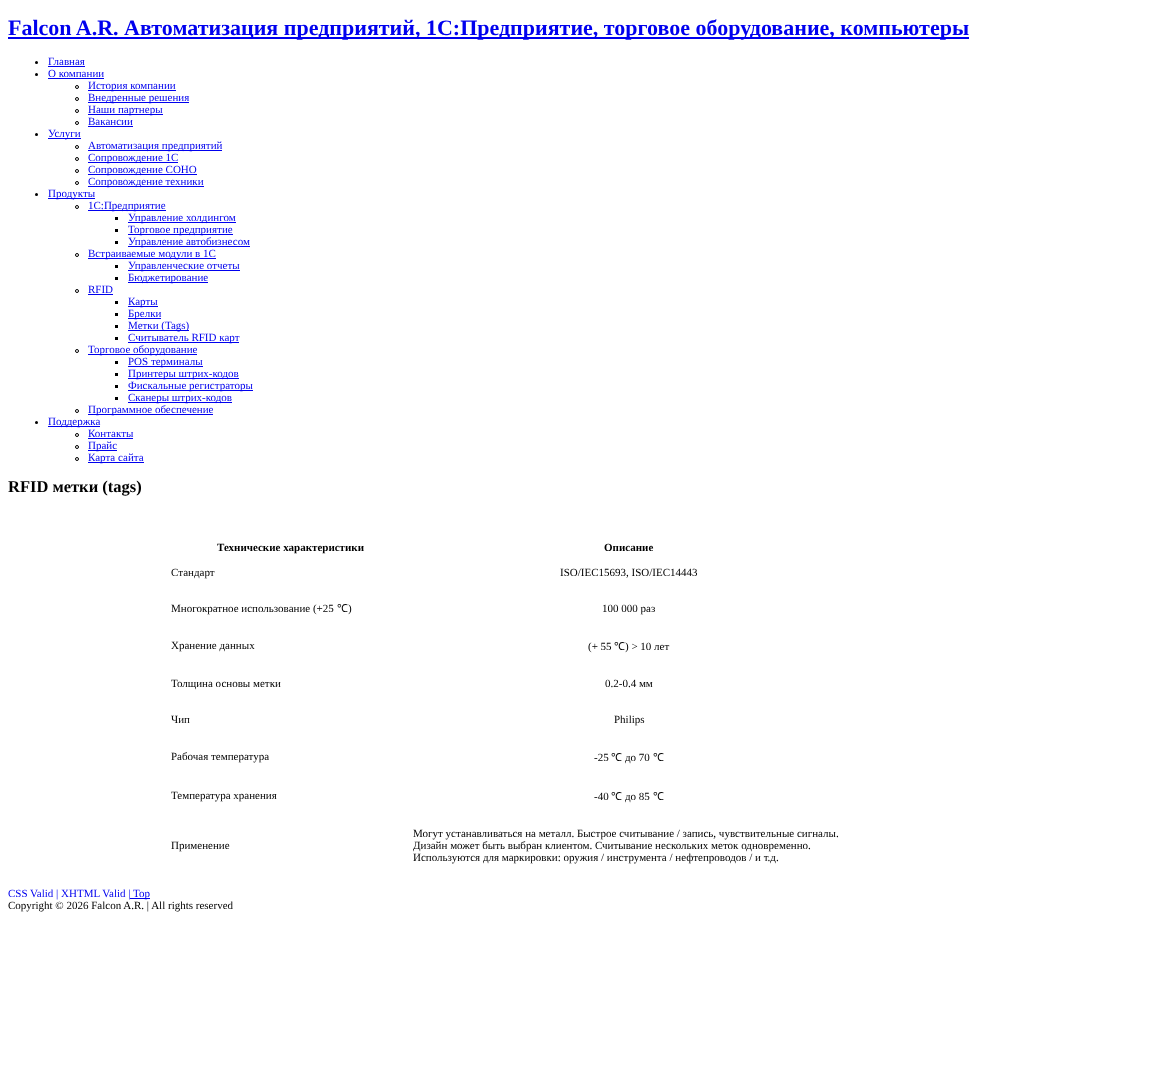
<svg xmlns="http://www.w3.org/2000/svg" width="1165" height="1071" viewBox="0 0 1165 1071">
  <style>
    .t1 { font: bold 22px Liberation Serif; fill: #00e; }
    .t2 { font: 11px Liberation Serif; fill: #00e; }
    .t3 { font: bold 16.5px Liberation Serif; fill: #000; }
    .t4 { font: bold 11px Liberation Serif; fill: #000; }
    .t5 { font: 11px Liberation Serif; fill: #000; }
    .t6 { font: 11px Noto Sans; fill: #000; }
  </style>
  <rect width="100%" height="100%" fill="#fff"/>
  <rect x="8" y="37" width="961" height="2" fill="#00e"/>
  <text x="8" y="35" class="t1">Falcon A.R. Автоматизация предприятий, 1С:Предприятие, торговое оборудование, компьютеры</text>
  <circle cx="36.5" cy="62.5" r="1.5" fill="#000"/>
  <text x="48" y="65" class="t2">Главная</text>
  <rect x="48" y="66" width="37" height="1" fill="#00e"/>
  <circle cx="36.5" cy="74.5" r="1.5" fill="#000"/>
  <text x="48" y="77" class="t2">О компании</text>
  <rect x="48" y="78" width="56" height="1" fill="#00e"/>
  <circle cx="77" cy="87" r="1.5" fill="none" stroke="#000"/>
  <rect x="88" y="90" width="88" height="1" fill="#00e"/>
  <text x="88" y="89" class="t2">История компании</text>
  <circle cx="77" cy="99" r="1.5" fill="none" stroke="#000"/>
  <rect x="88" y="102" width="101" height="1" fill="#00e"/>
  <text x="88" y="101" class="t2">Внедренные решения</text>
  <circle cx="77" cy="111" r="1.5" fill="none" stroke="#000"/>
  <rect x="88" y="114" width="75" height="1" fill="#00e"/>
  <text x="88" y="113" class="t2">Наши партнеры</text>
  <circle cx="77" cy="123" r="1.5" fill="none" stroke="#000"/>
  <text x="88" y="125" class="t2">Вакансии</text>
  <rect x="88" y="126" width="45" height="1" fill="#00e"/>
  <circle cx="36.5" cy="134.5" r="1.5" fill="#000"/>
  <rect x="48" y="138" width="33" height="1" fill="#00e"/>
  <text x="48" y="137" class="t2">Услуги</text>
  <circle cx="77" cy="147" r="1.5" fill="none" stroke="#000"/>
  <rect x="88" y="150" width="134" height="1" fill="#00e"/>
  <text x="88" y="149" class="t2">Автоматизация предприятий</text>
  <circle cx="77" cy="159" r="1.5" fill="none" stroke="#000"/>
  <rect x="88" y="162" width="90" height="1" fill="#00e"/>
  <text x="88" y="161" class="t2">Сопровождение 1С</text>
  <circle cx="77" cy="171" r="1.5" fill="none" stroke="#000"/>
  <rect x="88" y="174" width="109" height="1" fill="#00e"/>
  <text x="88" y="173" class="t2">Сопровождение СОНО</text>
  <circle cx="77" cy="183" r="1.5" fill="none" stroke="#000"/>
  <rect x="88" y="186" width="116" height="1" fill="#00e"/>
  <text x="88" y="185" class="t2">Сопровождение техники</text>
  <circle cx="36.5" cy="194.5" r="1.5" fill="#000"/>
  <rect x="48" y="198" width="47" height="1" fill="#00e"/>
  <text x="48" y="197" class="t2">Продукты</text>
  <circle cx="77" cy="207" r="1.5" fill="none" stroke="#000"/>
  <rect x="88" y="210" width="78" height="1" fill="#00e"/>
  <text x="88" y="209" class="t2">1С:Предприятие</text>
  <rect x="115" y="217" width="3" height="3" fill="#000"/>
  <rect x="128" y="222" width="108" height="1" fill="#00e"/>
  <text x="128" y="221" class="t2">Управление холдингом</text>
  <rect x="115" y="229" width="3" height="3" fill="#000"/>
  <rect x="128" y="234" width="105" height="1" fill="#00e"/>
  <text x="128" y="233" class="t2">Торговое предприятие</text>
  <rect x="115" y="241" width="3" height="3" fill="#000"/>
  <rect x="128" y="246" width="122" height="1" fill="#00e"/>
  <text x="128" y="245" class="t2">Управление автобизнесом</text>
  <circle cx="77" cy="255" r="1.5" fill="none" stroke="#000"/>
  <rect x="88" y="258" width="128" height="1" fill="#00e"/>
  <text x="88" y="257" class="t2">Встраиваемые модули в 1С</text>
  <rect x="115" y="265" width="3" height="3" fill="#000"/>
  <rect x="128" y="270" width="112" height="1" fill="#00e"/>
  <text x="128" y="269" class="t2">Управленческие отчеты</text>
  <rect x="115" y="277" width="3" height="3" fill="#000"/>
  <rect x="128" y="282" width="80" height="1" fill="#00e"/>
  <text x="128" y="281" class="t2">Бюджетирование</text>
  <circle cx="77" cy="291" r="1.5" fill="none" stroke="#000"/>
  <text x="88" y="293" class="t2">RFID</text>
  <rect x="88" y="294" width="25" height="1" fill="#00e"/>
  <rect x="115" y="301" width="3" height="3" fill="#000"/>
  <rect x="128" y="306" width="30" height="1" fill="#00e"/>
  <text x="128" y="305" class="t2">Карты</text>
  <rect x="115" y="313" width="3" height="3" fill="#000"/>
  <rect x="128" y="318" width="33" height="1" fill="#00e"/>
  <text x="128" y="317" class="t2">Брелки</text>
  <rect x="115" y="325" width="3" height="3" fill="#000"/>
  <rect x="128" y="330" width="61" height="1" fill="#00e"/>
  <text x="128" y="329" class="t2">Метки (Tags)</text>
  <rect x="115" y="337" width="3" height="3" fill="#000"/>
  <rect x="128" y="342" width="111" height="1" fill="#00e"/>
  <text x="128" y="341" class="t2">Считыватель RFID карт</text>
  <circle cx="77" cy="351" r="1.5" fill="none" stroke="#000"/>
  <rect x="88" y="354" width="109" height="1" fill="#00e"/>
  <text x="88" y="353" class="t2">Торговое оборудование</text>
  <rect x="115" y="361" width="3" height="3" fill="#000"/>
  <rect x="128" y="366" width="75" height="1" fill="#00e"/>
  <text x="128" y="365" class="t2">POS терминалы</text>
  <rect x="115" y="373" width="3" height="3" fill="#000"/>
  <rect x="128" y="378" width="111" height="1" fill="#00e"/>
  <text x="128" y="377" class="t2">Принтеры штрих-кодов</text>
  <rect x="115" y="385" width="3" height="3" fill="#000"/>
  <rect x="128" y="390" width="125" height="1" fill="#00e"/>
  <text x="128" y="389" class="t2">Фискальные регистраторы</text>
  <rect x="115" y="397" width="3" height="3" fill="#000"/>
  <rect x="128" y="402" width="104" height="1" fill="#00e"/>
  <text x="128" y="401" class="t2">Сканеры штрих-кодов</text>
  <circle cx="77" cy="411" r="1.5" fill="none" stroke="#000"/>
  <rect x="88" y="414" width="125" height="1" fill="#00e"/>
  <text x="88" y="413" class="t2">Программное обеспечение</text>
  <circle cx="36.5" cy="422.5" r="1.5" fill="#000"/>
  <rect x="48" y="426" width="52" height="1" fill="#00e"/>
  <text x="48" y="425" class="t2">Поддержка</text>
  <circle cx="77" cy="435" r="1.5" fill="none" stroke="#000"/>
  <text x="88" y="437" class="t2">Контакты</text>
  <rect x="88" y="438" width="45" height="1" fill="#00e"/>
  <circle cx="77" cy="447" r="1.5" fill="none" stroke="#000"/>
  <rect x="88" y="450" width="29" height="1" fill="#00e"/>
  <text x="88" y="449" class="t2">Прайс</text>
  <circle cx="77" cy="459" r="1.5" fill="none" stroke="#000"/>
  <rect x="88" y="462" width="56" height="1" fill="#00e"/>
  <text x="88" y="461" class="t2">Карта сайта</text>
  <text x="8" y="492" class="t3">RFID метки (tags)</text>
  <text x="217" y="551" class="t4">Технические характеристики</text>
  <text x="604" y="551" class="t4">Описание</text>
  <text x="171" y="576" class="t5">Стандарт</text>
  <text x="560" y="576" class="t5">ISO/IEC15693, ISO/IEC14443</text>
  <text x="171" y="612" class="t5">Многократное использование (+25</text>
  <text x="337" y="612" class="t6">℃</text>
  <text x="348" y="612" class="t5">)</text>
  <text x="602" y="612" class="t5">100 000 раз</text>
  <text x="171" y="649" class="t5">Хранение данных</text>
  <text x="588" y="650" class="t5">(+ 55</text>
  <text x="614" y="650" class="t6">℃</text>
  <text x="625" y="650" class="t5">) &gt; 10 лет</text>
  <text x="171" y="687" class="t5">Толщина основы метки</text>
  <text x="605" y="687" class="t5">0.2-0.4 мм</text>
  <text x="171" y="723" class="t5">Чип</text>
  <text x="614" y="723" class="t5">Philips</text>
  <text x="171" y="760" class="t5">Рабочая температура</text>
  <text x="594" y="761" class="t5">-25</text>
  <text x="611" y="761" class="t6">℃</text>
  <text x="625" y="761" class="t5">до 70</text>
  <text x="653" y="761" class="t6">℃</text>
  <text x="171" y="799" class="t5">Температура хранения</text>
  <text x="594" y="800" class="t5">-40</text>
  <text x="611" y="800" class="t6">℃</text>
  <text x="625" y="800" class="t5">до 85</text>
  <text x="653" y="800" class="t6">℃</text>
  <text x="171" y="849" class="t5">Применение</text>
  <text x="413" y="837" class="t5">Могут устанавливаться на металл. Быстрое считывание / запись, чувствительные сигналы.</text>
  <text x="413" y="849" class="t5">Дизайн может быть выбран клиентом. Считывание нескольких меток одновременно.</text>
  <text x="413" y="861" class="t5">Используются для маркировки: оружия / инструмента / нефтепроводов / и т.д.</text>
  <text x="8" y="897" class="t2">CSS Valid | XHTML Valid |</text>
  <rect x="130" y="898" width="20" height="1" fill="#00e"/>
  <text x="133" y="897" class="t2">Top</text>
  <text x="8" y="909" class="t5">Copyright © 2026 Falcon A.R. | All rights reserved</text>
</svg>
